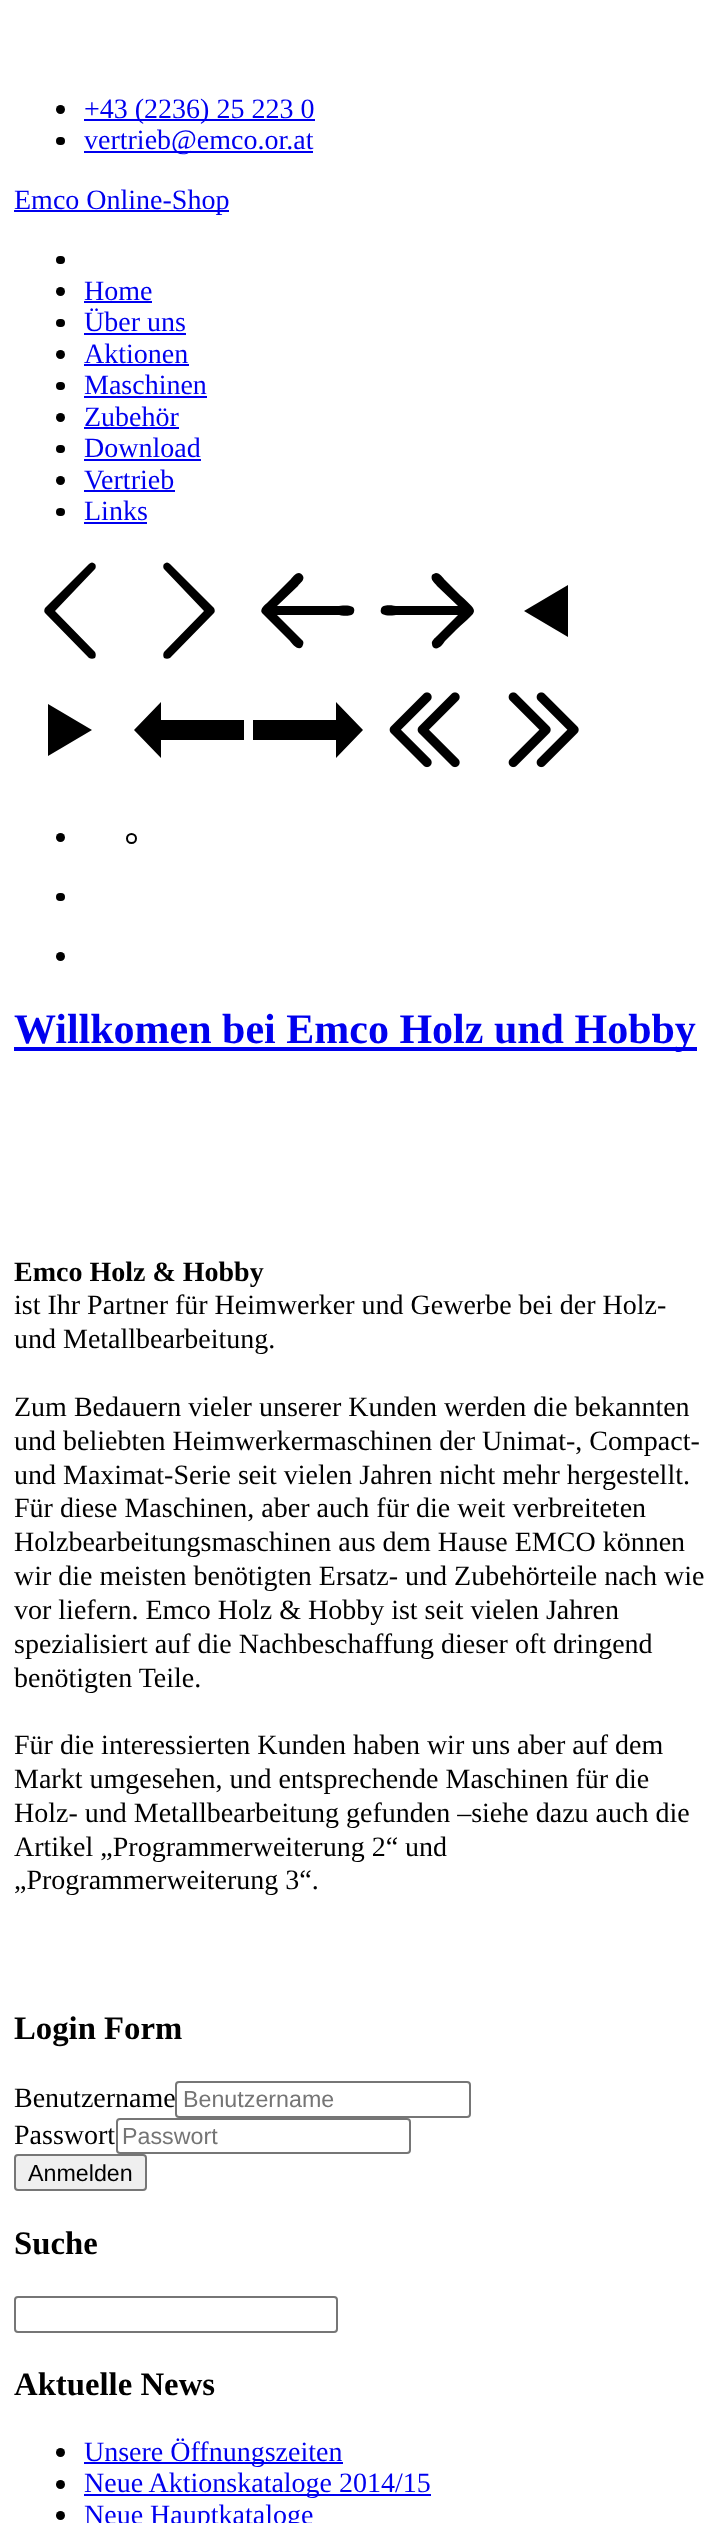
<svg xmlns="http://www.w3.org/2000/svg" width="724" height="2523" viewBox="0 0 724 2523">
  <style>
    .t1 { font: 28px Liberation Serif; fill: #00e; }
    .t2 { font: bold 42px Liberation Serif; fill: #00e; }
    .t3 { font: bold 28px Liberation Serif; fill: #000; }
    .t4 { font: 28px Liberation Serif; fill: #000; }
    .t5 { font: bold 32.75px Liberation Serif; fill: #000; }
    .t6 { font: 23.25px Liberation Sans; fill: #757575; }
    .t7 { font: 23.25px Liberation Sans; fill: #000; }
  </style>
  <rect width="100%" height="100%" fill="#fff"/>
  <circle cx="60.5" cy="109.5" r="4.5" fill="#000"/>
  <rect x="84" y="119" width="231" height="2" fill="#00e"/>
  <text x="84" y="118" class="t1">+43 (2236) 25 223 0</text>
  <rect x="56" y="137" width="9" height="8" rx="4" fill="#000"/>
  <rect x="84" y="151" width="229" height="2" fill="#00e"/>
  <text x="84" y="149" class="t1">vertrieb@emco.or.at</text>
  <rect x="14" y="210" width="215" height="2" fill="#00e"/>
  <text x="14" y="209" class="t1">Emco Online-Shop</text>
  <rect x="56" y="256" width="9" height="8" rx="4" fill="#000"/>
  <circle cx="60.5" cy="291.5" r="4.5" fill="#000"/>
  <text x="84" y="300" class="t1">Home</text>
  <rect x="84" y="301" width="68" height="2" fill="#00e"/>
  <rect x="56" y="319" width="9" height="8" rx="4" fill="#000"/>
  <text x="84" y="331" class="t1">Über uns</text>
  <rect x="84" y="333" width="102" height="2" fill="#00e"/>
  <circle cx="60.5" cy="354.5" r="4.5" fill="#000"/>
  <text x="84" y="363" class="t1">Aktionen</text>
  <rect x="84" y="364" width="105" height="2" fill="#00e"/>
  <rect x="56" y="382" width="9" height="8" rx="4" fill="#000"/>
  <text x="84" y="394" class="t1">Maschinen</text>
  <rect x="84" y="396" width="123" height="2" fill="#00e"/>
  <circle cx="60.5" cy="417.5" r="4.5" fill="#000"/>
  <text x="84" y="426" class="t1">Zubehör</text>
  <rect x="84" y="427" width="95" height="2" fill="#00e"/>
  <rect x="56" y="445" width="9" height="8" rx="4" fill="#000"/>
  <text x="84" y="457" class="t1">Download</text>
  <rect x="84" y="459" width="117" height="2" fill="#00e"/>
  <circle cx="60.5" cy="480.5" r="4.5" fill="#000"/>
  <text x="84" y="489" class="t1">Vertrieb</text>
  <rect x="84" y="490" width="91" height="2" fill="#00e"/>
  <rect x="56" y="508" width="9" height="8" rx="4" fill="#000"/>
  <text x="84" y="520" class="t1">Links</text>
  <rect x="84" y="522" width="63" height="2" fill="#00e"/>
  <path d="M95 652C96 654 96 656 95 658C93 659 91 659 89 658L45 613C44 612 44 610 45 608L89 564C91 562 93 562 95 564C96 565 96 568 95 569L55 611Z" fill="#000"/>
  <path d="M164 652C163 654 163 656 164 658C166 659 168 659 170 658L214 613C215 612 215 610 214 608L170 564C168 562 166 562 164 564C163 565 163 568 164 569L204 611Z" fill="#000"/>
  <path d="M299 573C300 573 302 574 303 576C305 580 300 583 298 586L277 606H338C340 606 357 603 354 612C353 618 340 615 338 615H277L303 641C304 643 303 645 302 647C298 651 292 644 290 641L262 613C259 609 266 604 268 602L290 580C292 578 295 573 299 573Z" fill="#000"/>
  <path d="M436 573C440 573 443 578 445 580L456 591C480 615 480 607 456 630L445 641C443 644 439 650 434 648C433 647 432 646 432 644C431 641 435 638 437 636L458 615H397C395 615 378 618 381 609C382 603 395 606 397 606H458L437 586C435 583 430 580 432 575C433 574 435 573 436 573Z" fill="#000"/>
  <path d="M568 585V637L524 611Z" fill="#000"/>
  <path d="M48 704V756L92 730Z" fill="#000"/>
  <path d="M161 758V740H244V720H161V702L134 730Z" fill="#000"/>
  <path d="M336 758V740H253V720H336V702L363 730Z" fill="#000"/>
  <image x="389" y="692" width="71" height="76" href="images/1.png"/>
  <image x="508" y="692" width="71" height="76" href="images/2.png"/>
  <circle cx="60.5" cy="837.5" r="4.5" fill="#000"/>
  <circle cx="131.5" cy="838.5" r="4.5" fill="none" stroke="#000" stroke-width="2"/>
  <rect x="56" y="893" width="9" height="8" rx="4" fill="#000"/>
  <circle cx="60.5" cy="956.5" r="4.5" fill="#000"/>
  <rect x="14" y="1047" width="683" height="4" fill="#00e"/>
  <text x="14" y="1043" class="t2">Willkomen bei Emco Holz und Hobby</text>
  <text x="14" y="1281" class="t3">Emco Holz &amp; Hobby</text>
  <text x="14" y="1314" class="t4">ist Ihr Partner für Heimwerker und Gewerbe bei der Holz-</text>
  <text x="14" y="1348" class="t4">und Metallbearbeitung.</text>
  <text x="14" y="1416" class="t4">Zum Bedauern vieler unserer Kunden werden die bekannten</text>
  <text x="14" y="1450" class="t4">und beliebten Heimwerkermaschinen der Unimat-, Compact-</text>
  <text x="14" y="1484" class="t4">und Maximat-Serie seit vielen Jahren nicht mehr hergestellt.</text>
  <text x="14" y="1517" class="t4">Für diese Maschinen, aber auch für die weit verbreiteten</text>
  <text x="14" y="1551" class="t4">Holzbearbeitungsmaschinen aus dem Hause EMCO können</text>
  <text x="14" y="1585" class="t4">wir die meisten benötigten Ersatz- und Zubehörteile nach wie</text>
  <text x="14" y="1619" class="t4">vor liefern. Emco Holz &amp; Hobby ist seit vielen Jahren</text>
  <text x="14" y="1653" class="t4">spezialisiert auf die Nachbeschaffung dieser oft dringend</text>
  <text x="14" y="1687" class="t4">benötigten Teile.</text>
  <text x="14" y="1754" class="t4">Für die interessierten Kunden haben wir uns aber auf dem</text>
  <text x="14" y="1788" class="t4">Markt umgesehen, und entsprechende Maschinen für die</text>
  <text x="14" y="1822" class="t4">Holz- und Metallbearbeitung gefunden –siehe dazu auch die</text>
  <text x="14" y="1856" class="t4">Artikel „Programmerweiterung 2“ und</text>
  <text x="14" y="1889" class="t4">„Programmerweiterung 3“.</text>
  <text x="14" y="2039" class="t5">Login Form</text>
  <text x="14" y="2107" class="t4">Benutzername</text>
  <rect x="176" y="2082" width="294" height="35" rx="3" fill="none" stroke="#767676" stroke-width="2"/>
  <text x="183" y="2107" class="t6">Benutzername</text>
  <text x="14" y="2144" class="t4">Passwort</text>
  <rect x="117" y="2119" width="293" height="34" rx="3" fill="none" stroke="#767676" stroke-width="2"/>
  <text x="122" y="2144" class="t6">Passwort</text>
  <rect x="15" y="2155" width="131" height="35" rx="3" fill="#efefef" stroke="#767676" stroke-width="2"/>
  <text x="28" y="2181" class="t7">Anmelden</text>
  <text x="14" y="2254" class="t5">Suche</text>
  <rect x="15" y="2297" width="322" height="35" rx="3" fill="none" stroke="#767676" stroke-width="2"/>
  <text x="14" y="2395" class="t5">Aktuelle News</text>
  <circle cx="60.5" cy="2452.5" r="4.5" fill="#000"/>
  <rect x="84" y="2462" width="259" height="2" fill="#00e"/>
  <text x="84" y="2461" class="t1">Unsere Öffnungszeiten</text>
  <circle cx="60.5" cy="2484.5" r="4.5" fill="#000"/>
  <rect x="84" y="2494" width="347" height="2" fill="#00e"/>
  <text x="84" y="2492" class="t1">Neue Aktionskataloge 2014/15</text>
  <circle cx="60.5" cy="2515.5" r="4.5" fill="#000"/>
  <text x="84" y="2524" class="t1">Neue Hauptkataloge</text>
</svg>
